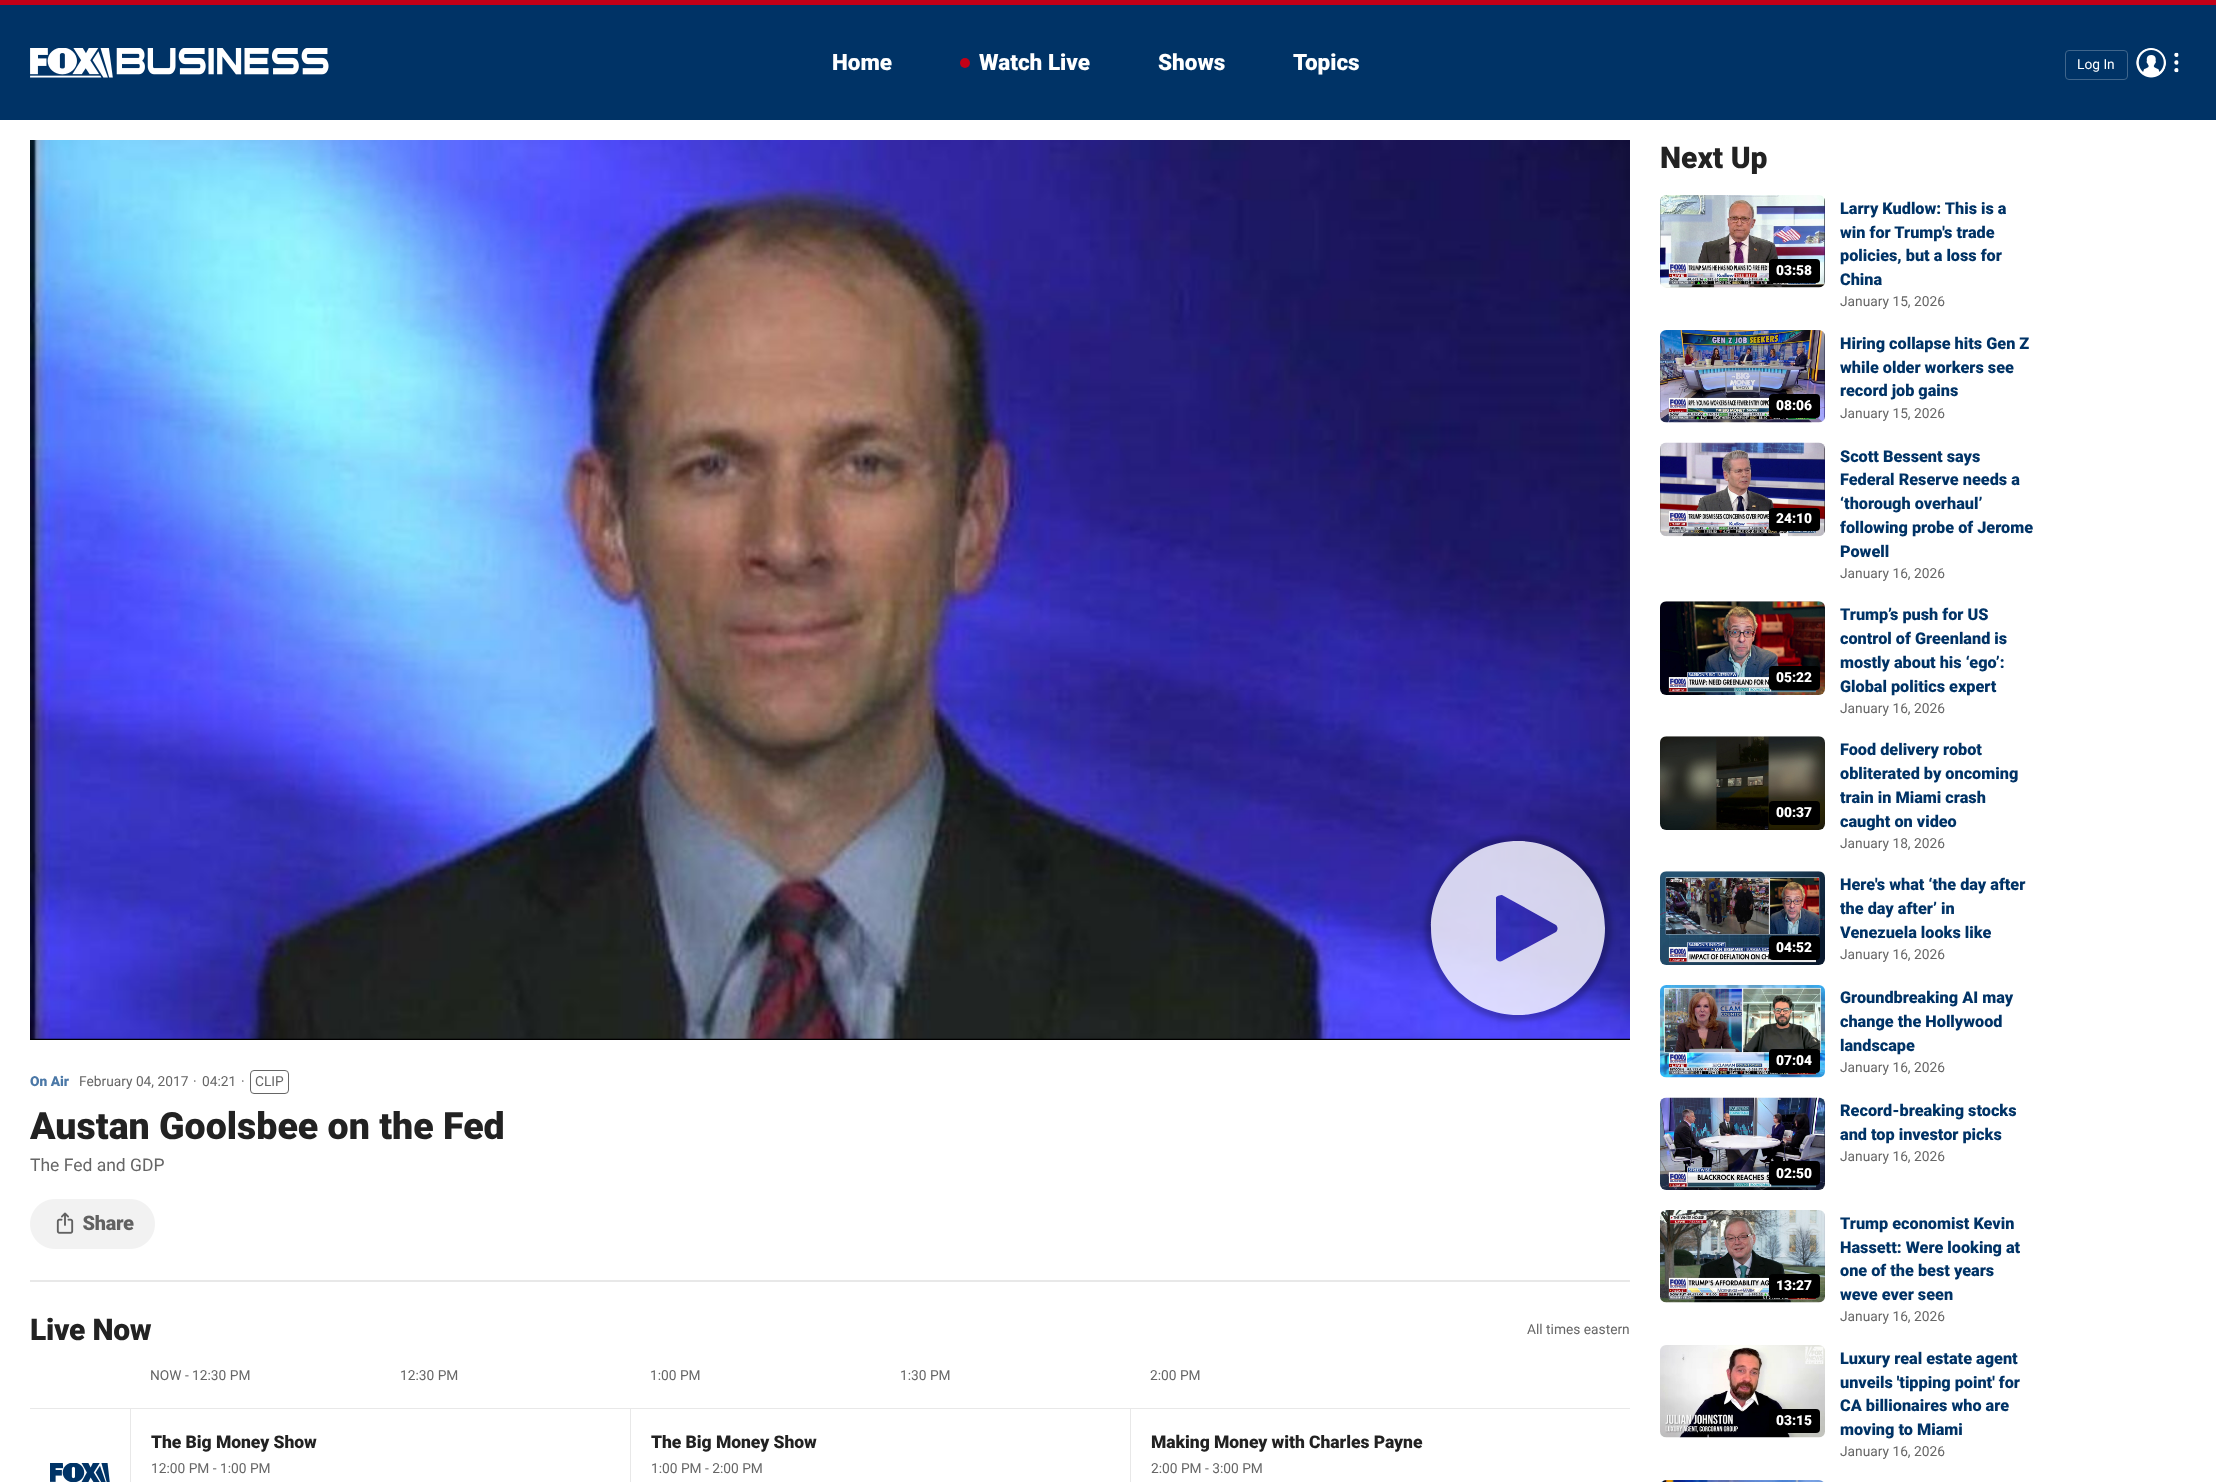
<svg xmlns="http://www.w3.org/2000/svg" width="2216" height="1482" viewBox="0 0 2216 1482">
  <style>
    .t1 { font: 900 22.5px Roboto; fill: #fff; }
    .t2 { font: 13.75px Roboto; fill: #fff; }
    .t3 { font: 900 13.75px Roboto; fill: #4b78a7; }
    .t4 { font: 13.75px Roboto; fill: #666; }
    .t5 { font: 900 37.5px Roboto; fill: #222; }
    .t6 { font: 17.5px Roboto; fill: #666; }
    .t7 { font: 900 30px Roboto; letter-spacing: -0.25px; fill: #222; }
    .t8 { font: 900 17.5px Roboto; letter-spacing: -0.05px; fill: #222; }
    .t9 { font: 900 30px Roboto; fill: #222; }
    .t10 { font: 900 13.75px Roboto; fill: #fff; }
    .t11 { font: 900 16.25px Roboto; fill: #036; }
  </style>
  <defs>
    <clipPath id="clip1"><path d="M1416 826H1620V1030H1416ZM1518 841C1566 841 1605 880 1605 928C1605 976 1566 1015 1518 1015C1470 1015 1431 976 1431 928C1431 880 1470 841 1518 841Z" clip-rule="evenodd"/></clipPath>
  </defs>
  <rect width="100%" height="100%" fill="#fff"/>
  <rect x="0" y="5" width="2216" height="115" fill="#036"/>
  <rect x="0" y="0" width="2216" height="5" fill="#c20017"/>
  <image x="30" y="48" width="299" height="30" href="images/1.png"/>
  <text x="832" y="70" class="t1">Home</text>
  <circle cx="965" cy="63" r="5" fill="#c20017"/>
  <text x="979" y="70" class="t1">Watch Live</text>
  <text x="1158" y="70" class="t1">Shows</text>
  <text x="1293" y="70" class="t1">Topics</text>
  <rect x="2065.5" y="50.5" width="62" height="29" rx="3.5" fill="none" stroke="#40668c"/>
  <text x="2077" y="69" class="t2">Log In</text>
  <image x="2136" y="48" width="30" height="30" href="images/2.png"/>
  <image x="2174" y="52" width="5" height="21" href="images/3.png"/>
  <rect x="30" y="1280" width="1600" height="2" fill="#e8e8e8"/>
  <rect x="30" y="1038" width="1600" height="2" fill="#000"/>
  <image x="30" y="140" width="1600" height="899" href="images/4.png"/>
  <g clip-path="url(#clip1)">
    <rect x="1425" y="835" width="186" height="186" rx="93" fill="#0000003d" filter="blur(2.5px)"/>
  </g>
  <path d="M1518 841C1566 841 1605 880 1605 928C1605 976 1566 1015 1518 1015C1470 1015 1431 976 1431 928C1431 880 1470 841 1518 841ZM1556 932C1558 930 1558 927 1556 925L1502 895C1500 895 1496 896 1496 898V958C1496 961 1500 962 1502 961Z" fill="#ffffffcc" fill-rule="evenodd"/>
  <text x="30" y="1086" class="t3">On Air</text>
  <text x="79" y="1086" class="t4">February 04, 2017</text>
  <text x="193" y="1086" class="t4">·</text>
  <text x="202" y="1086" class="t4">04:21</text>
  <text x="241" y="1086" class="t4">·</text>
  <rect x="250.5" y="1070.5" width="38" height="23" rx="3.5" fill="none" stroke="#666"/>
  <text x="255" y="1086" class="t4">CLIP</text>
  <text x="30" y="1139" class="t5">Austan Goolsbee on the Fed</text>
  <text x="30" y="1171" class="t6">The Fed and GDP</text>
  <image x="30" y="1199" width="125" height="50" href="images/5.png"/>
  <text x="30" y="1340" class="t7">Live Now</text>
  <text x="1527" y="1334" class="t4">All times eastern</text>
  <text x="150" y="1380" class="t4">NOW - 12:30 PM</text>
  <text x="400" y="1380" class="t4">12:30 PM</text>
  <text x="650" y="1380" class="t4">1:00 PM</text>
  <text x="900" y="1380" class="t4">1:30 PM</text>
  <text x="1150" y="1380" class="t4">2:00 PM</text>
  <rect x="30" y="1408" width="1600" height="1" fill="#e8e8e8"/>
  <image x="50" y="1463" width="60" height="19" href="images/6.png"/>
  <rect x="130" y="1409" width="1" height="73" fill="#e8e8e8"/>
  <text x="151" y="1448" class="t8">The Big Money Show</text>
  <text x="151" y="1473" class="t4">12:00 PM - 1:00 PM</text>
  <rect x="630" y="1409" width="1" height="73" fill="#e8e8e8"/>
  <text x="651" y="1448" class="t8">The Big Money Show</text>
  <text x="651" y="1473" class="t4">1:00 PM - 2:00 PM</text>
  <rect x="1130" y="1409" width="1" height="73" fill="#e8e8e8"/>
  <text x="1151" y="1448" class="t8">Making Money with Charles Payne</text>
  <text x="1151" y="1473" class="t4">2:00 PM - 3:00 PM</text>
  <text x="1660" y="168" class="t9">Next Up</text>
  <image x="1660" y="195" width="165" height="93" href="images/7.png"/>
  <rect x="1769" y="259" width="51" height="24" rx="4" fill="#000"/>
  <text x="1776" y="275" class="t10">03:58</text>
  <text x="1840" y="214" class="t11">Larry Kudlow: This is a</text>
  <text x="1840" y="238" class="t11">win for Trump's trade</text>
  <text x="1840" y="261" class="t11">policies, but a loss for</text>
  <text x="1840" y="285" class="t11">China</text>
  <text x="1840" y="306" class="t4">January 15, 2026</text>
  <image x="1660" y="330" width="165" height="93" href="images/8.png"/>
  <rect x="1769" y="394" width="51" height="24" rx="4" fill="#000"/>
  <text x="1776" y="410" class="t10">08:06</text>
  <text x="1840" y="349" class="t11">Hiring collapse hits Gen Z</text>
  <text x="1840" y="373" class="t11">while older workers see</text>
  <text x="1840" y="396" class="t11">record job gains</text>
  <text x="1840" y="418" class="t4">January 15, 2026</text>
  <image x="1660" y="442" width="165" height="95" href="images/9.png"/>
  <rect x="1769" y="508" width="51" height="23" rx="4" fill="#000"/>
  <text x="1776" y="523" class="t10">24:10</text>
  <text x="1840" y="462" class="t11">Scott Bessent says</text>
  <text x="1840" y="485" class="t11">Federal Reserve needs a</text>
  <text x="1840" y="509" class="t11">‘thorough overhaul’</text>
  <text x="1840" y="533" class="t11">following probe of Jerome</text>
  <text x="1840" y="557" class="t11">Powell</text>
  <text x="1840" y="578" class="t4">January 16, 2026</text>
  <image x="1660" y="601" width="165" height="94" href="images/10.png"/>
  <rect x="1769" y="666" width="51" height="24" rx="4" fill="#000"/>
  <text x="1776" y="682" class="t10">05:22</text>
  <text x="1840" y="620" class="t11">Trump’s push for US</text>
  <text x="1840" y="644" class="t11">control of Greenland is</text>
  <text x="1840" y="668" class="t11">mostly about his ‘ego’:</text>
  <text x="1840" y="692" class="t11">Global politics expert</text>
  <text x="1840" y="713" class="t4">January 16, 2026</text>
  <image x="1660" y="736" width="165" height="94" href="images/11.png"/>
  <rect x="1769" y="801" width="51" height="24" rx="4" fill="#000"/>
  <text x="1776" y="817" class="t10">00:37</text>
  <text x="1840" y="755" class="t11">Food delivery robot</text>
  <text x="1840" y="779" class="t11">obliterated by oncoming</text>
  <text x="1840" y="803" class="t11">train in Miami crash</text>
  <text x="1840" y="827" class="t11">caught on video</text>
  <text x="1840" y="848" class="t4">January 18, 2026</text>
  <image x="1660" y="871" width="165" height="94" href="images/12.png"/>
  <rect x="1769" y="936" width="51" height="24" rx="4" fill="#000"/>
  <text x="1776" y="952" class="t10">04:52</text>
  <text x="1840" y="890" class="t11">Here's what ‘the day after</text>
  <text x="1840" y="914" class="t11">the day after’ in</text>
  <text x="1840" y="938" class="t11">Venezuela looks like</text>
  <text x="1840" y="959" class="t4">January 16, 2026</text>
  <image x="1660" y="985" width="165" height="93" href="images/13.png"/>
  <rect x="1769" y="1049" width="51" height="24" rx="4" fill="#000"/>
  <text x="1776" y="1065" class="t10">07:04</text>
  <text x="1840" y="1003" class="t11">Groundbreaking AI may</text>
  <text x="1840" y="1027" class="t11">change the Hollywood</text>
  <text x="1840" y="1051" class="t11">landscape</text>
  <text x="1840" y="1072" class="t4">January 16, 2026</text>
  <text x="1840" y="1116" class="t11">Record-breaking stocks</text>
  <text x="1840" y="1140" class="t11">and top investor picks</text>
  <text x="1840" y="1161" class="t4">January 16, 2026</text>
  <image x="1660" y="1097" width="165" height="93" href="images/14.png"/>
  <rect x="1769" y="1161" width="51" height="24" rx="4" fill="#000"/>
  <text x="1776" y="1178" class="t10">02:50</text>
  <image x="1660" y="1210" width="165" height="93" href="images/15.png"/>
  <rect x="1769" y="1274" width="51" height="24" rx="4" fill="#000"/>
  <text x="1776" y="1290" class="t10">13:27</text>
  <text x="1840" y="1229" class="t11">Trump economist Kevin</text>
  <text x="1840" y="1253" class="t11">Hassett: Were looking at</text>
  <text x="1840" y="1276" class="t11">one of the best years</text>
  <text x="1840" y="1300" class="t11">weve ever seen</text>
  <text x="1840" y="1321" class="t4">January 16, 2026</text>
  <image x="1660" y="1345" width="165" height="93" href="images/16.png"/>
  <rect x="1769" y="1409" width="51" height="24" rx="4" fill="#000"/>
  <text x="1776" y="1425" class="t10">03:15</text>
  <text x="1840" y="1364" class="t11">Luxury real estate agent</text>
  <text x="1840" y="1388" class="t11">unveils 'tipping point' for</text>
  <text x="1840" y="1411" class="t11">CA billionaires who are</text>
  <text x="1840" y="1435" class="t11">moving to Miami</text>
  <text x="1840" y="1456" class="t4">January 16, 2026</text>
  <image x="1661" y="1480" width="163" height="2" href="images/17.png"/>
</svg>
